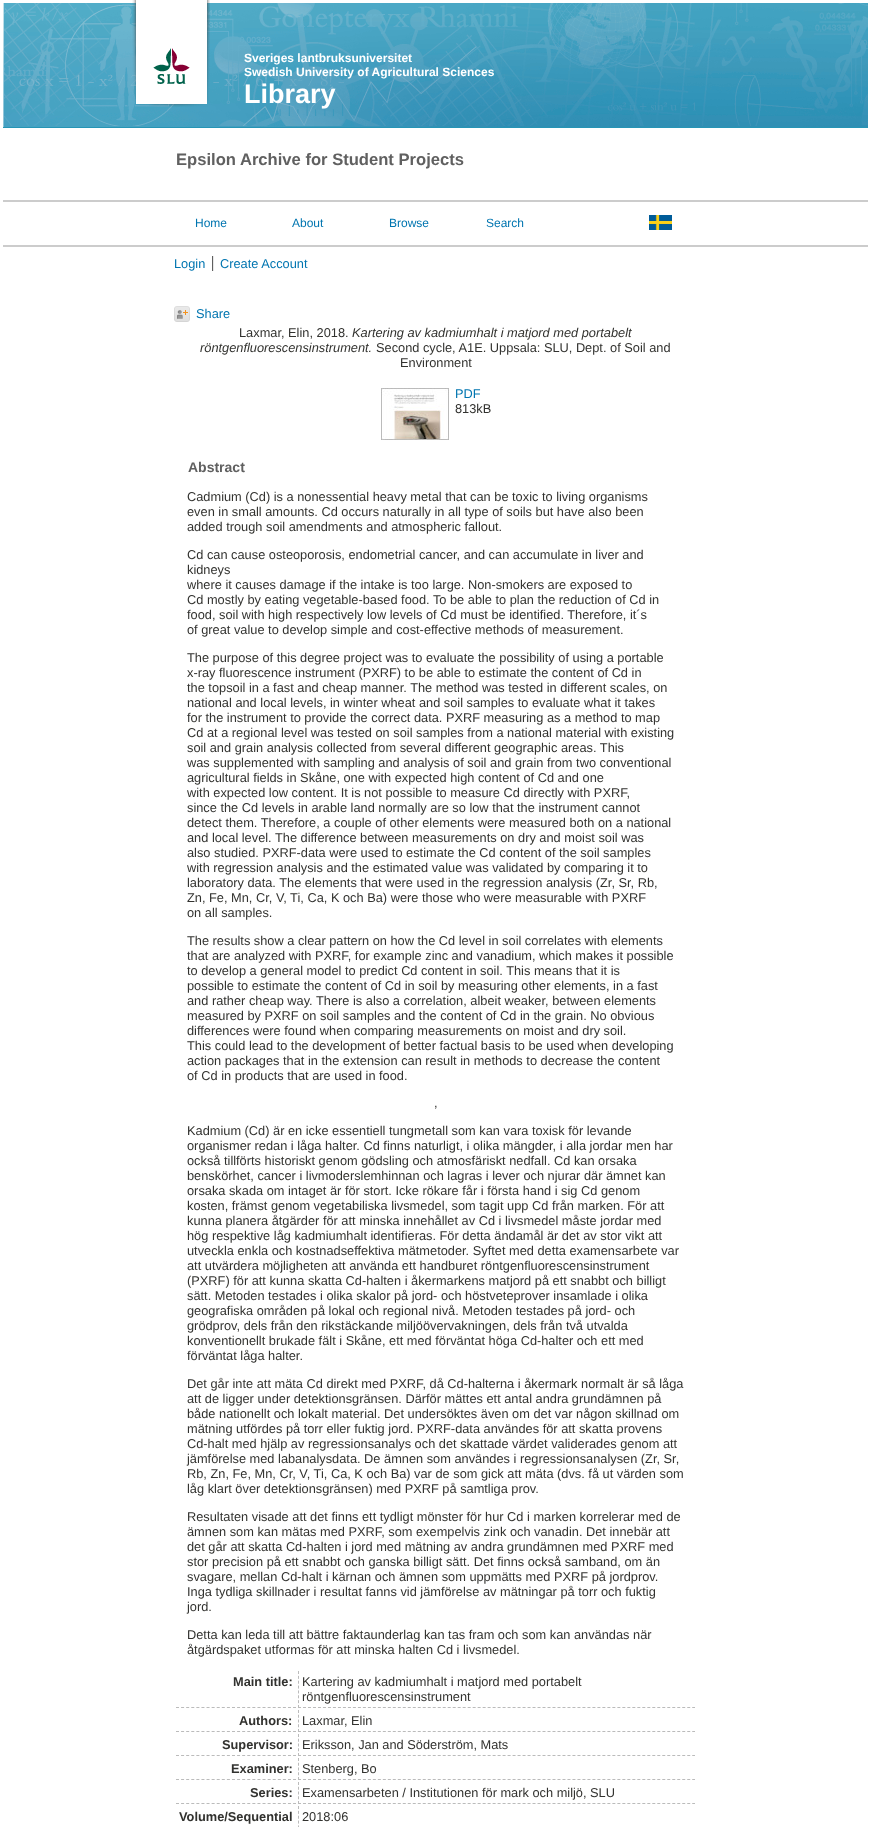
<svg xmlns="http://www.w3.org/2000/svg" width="871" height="1827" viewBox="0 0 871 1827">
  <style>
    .t1 { font: bold 12px Liberation Sans; fill: #fff; }
    .t2 { font: bold 27px Liberation Sans; fill: #fff; }
    .t3 { font: bold 16.6px Liberation Sans; fill: #606060; }
    .t4 { font: 12px Liberation Sans; fill: #0075b0; }
    .t5 { font: 12.8px Liberation Sans; fill: #0075b0; }
    .t6 { font: 12.8px Liberation Sans; fill: #32322f; }
    .t7 { font: italic 12.8px Liberation Sans; fill: #32322f; }
    .t8 { font: bold 14px Liberation Sans; fill: #606060; }
    .t9 { font: bold 12.8px Liberation Sans; fill: #32322f; }
  </style>
  <rect width="100%" height="100%" fill="#fff"/>
  <image x="3" y="3" width="865" height="125" href="images/1.png"/>
  <image x="132" y="0" width="78" height="107" href="images/2.png"/>
  <text x="244" y="62" class="t1">Sveriges lantbruksuniversitet</text>
  <text x="244" y="76" class="t1">Swedish University of Agricultural Sciences</text>
  <text x="244" y="103" class="t2">Library</text>
  <text x="176" y="165" class="t3">Epsilon Archive for Student Projects</text>
  <rect x="3" y="200" width="865" height="2" fill="#ccc"/>
  <text x="195" y="227" class="t4">Home</text>
  <text x="292" y="227" class="t4">About</text>
  <text x="389" y="227" class="t4">Browse</text>
  <text x="486" y="227" class="t4">Search</text>
  <image x="649" y="215" width="23" height="15" href="images/3.png"/>
  <rect x="3" y="245" width="865" height="2" fill="#ccc"/>
  <text x="174" y="268" class="t5">Login</text>
  <rect x="212" y="256" width="1" height="15" fill="#606060"/>
  <text x="220" y="268" class="t5">Create Account</text>
  <rect x="213" y="256" width="1" height="15" fill="#e8e8e8"/>
  <image x="174" y="306" width="16" height="16" href="images/4.png"/>
  <text x="196" y="318" class="t5">Share</text>
  <text x="239" y="337" class="t6">Laxmar, Elin, 2018.</text>
  <text x="352" y="337" class="t7">Kartering av kadmiumhalt i matjord med portabelt</text>
  <text x="200" y="352" class="t7">röntgenfluorescensinstrument.</text>
  <text x="376" y="352" class="t6">Second cycle, A1E. Uppsala: SLU, Dept. of Soil and</text>
  <text x="400" y="367" class="t6">Environment</text>
  <image x="381" y="388" width="68" height="52" href="images/5.png"/>
  <text x="455" y="398" class="t5">PDF</text>
  <text x="455" y="413" class="t6">813kB</text>
  <text x="188" y="472" class="t8">Abstract</text>
  <text x="187" y="501" class="t6">Cadmium (Cd) is a nonessential heavy metal that can be toxic to living organisms</text>
  <text x="187" y="516" class="t6">even in small amounts. Cd occurs naturally in all type of soils but have also been</text>
  <text x="187" y="531" class="t6">added trough soil amendments and atmospheric fallout.</text>
  <text x="187" y="559" class="t6">Cd can cause osteoporosis, endometrial cancer, and can accumulate in liver and</text>
  <text x="187" y="574" class="t6">kidneys</text>
  <text x="187" y="589" class="t6">where it causes damage if the intake is too large. Non-smokers are exposed to</text>
  <text x="187" y="604" class="t6">Cd mostly by eating vegetable-based food. To be able to plan the reduction of Cd in</text>
  <text x="187" y="619" class="t6">food, soil with high respectively low levels of Cd must be identified. Therefore, it´s</text>
  <text x="187" y="634" class="t6">of great value to develop simple and cost-effective methods of measurement.</text>
  <text x="187" y="662" class="t6">The purpose of this degree project was to evaluate the possibility of using a portable</text>
  <text x="187" y="677" class="t6">x-ray fluorescence instrument (PXRF) to be able to estimate the content of Cd in</text>
  <text x="187" y="692" class="t6">the topsoil in a fast and cheap manner. The method was tested in different scales, on</text>
  <text x="187" y="707" class="t6">national and local levels, in winter wheat and soil samples to evaluate what it takes</text>
  <text x="187" y="722" class="t6">for the instrument to provide the correct data. PXRF measuring as a method to map</text>
  <text x="187" y="737" class="t6">Cd at a regional level was tested on soil samples from a national material with existing</text>
  <text x="187" y="752" class="t6">soil and grain analysis collected from several different geographic areas. This</text>
  <text x="187" y="767" class="t6">was supplemented with sampling and analysis of soil and grain from two conventional</text>
  <text x="187" y="782" class="t6">agricultural fields in Skåne, one with expected high content of Cd and one</text>
  <text x="187" y="797" class="t6">with expected low content. It is not possible to measure Cd directly with PXRF,</text>
  <text x="187" y="812" class="t6">since the Cd levels in arable land normally are so low that the instrument cannot</text>
  <text x="187" y="827" class="t6">detect them. Therefore, a couple of other elements were measured both on a national</text>
  <text x="187" y="842" class="t6">and local level. The difference between measurements on dry and moist soil was</text>
  <text x="187" y="857" class="t6">also studied. PXRF-data were used to estimate the Cd content of the soil samples</text>
  <text x="187" y="872" class="t6">with regression analysis and the estimated value was validated by comparing it to</text>
  <text x="187" y="887" class="t6">laboratory data. The elements that were used in the regression analysis (Zr, Sr, Rb,</text>
  <text x="187" y="902" class="t6">Zn, Fe, Mn, Cr, V, Ti, Ca, K och Ba) were those who were measurable with PXRF</text>
  <text x="187" y="917" class="t6">on all samples.</text>
  <text x="187" y="945" class="t6">The results show a clear pattern on how the Cd level in soil correlates with elements</text>
  <text x="187" y="960" class="t6">that are analyzed with PXRF, for example zinc and vanadium, which makes it possible</text>
  <text x="187" y="975" class="t6">to develop a general model to predict Cd content in soil. This means that it is</text>
  <text x="187" y="990" class="t6">possible to estimate the content of Cd in soil by measuring other elements, in a fast</text>
  <text x="187" y="1005" class="t6">and rather cheap way. There is also a correlation, albeit weaker, between elements</text>
  <text x="187" y="1020" class="t6">measured by PXRF on soil samples and the content of Cd in the grain. No obvious</text>
  <text x="187" y="1035" class="t6">differences were found when comparing measurements on moist and dry soil.</text>
  <text x="187" y="1050" class="t6">This could lead to the development of better factual basis to be used when developing</text>
  <text x="187" y="1065" class="t6">action packages that in the extension can result in methods to decrease the content</text>
  <text x="187" y="1080" class="t6">of Cd in products that are used in food.</text>
  <text x="434" y="1107" class="t6">,</text>
  <text x="187" y="1135" class="t6">Kadmium (Cd) är en icke essentiell tungmetall som kan vara toxisk för levande</text>
  <text x="187" y="1150" class="t6">organismer redan i låga halter. Cd finns naturligt, i olika mängder, i alla jordar men har</text>
  <text x="187" y="1165" class="t6">också tillförts historiskt genom gödsling och atmosfäriskt nedfall. Cd kan orsaka</text>
  <text x="187" y="1180" class="t6">benskörhet, cancer i livmoderslemhinnan och lagras i lever och njurar där ämnet kan</text>
  <text x="187" y="1195" class="t6">orsaka skada om intaget är för stort. Icke rökare får i första hand i sig Cd genom</text>
  <text x="187" y="1210" class="t6">kosten, främst genom vegetabiliska livsmedel, som tagit upp Cd från marken. För att</text>
  <text x="187" y="1225" class="t6">kunna planera åtgärder för att minska innehållet av Cd i livsmedel måste jordar med</text>
  <text x="187" y="1240" class="t6">hög respektive låg kadmiumhalt identifieras. För detta ändamål är det av stor vikt att</text>
  <text x="187" y="1255" class="t6">utveckla enkla och kostnadseffektiva mätmetoder. Syftet med detta examensarbete var</text>
  <text x="187" y="1270" class="t6">att utvärdera möjligheten att använda ett handburet röntgenfluorescensinstrument</text>
  <text x="187" y="1285" class="t6">(PXRF) för att kunna skatta Cd-halten i åkermarkens matjord på ett snabbt och billigt</text>
  <text x="187" y="1300" class="t6">sätt. Metoden testades i olika skalor på jord- och höstveteprover insamlade i olika</text>
  <text x="187" y="1315" class="t6">geografiska områden på lokal och regional nivå. Metoden testades på jord- och</text>
  <text x="187" y="1330" class="t6">grödprov, dels från den rikstäckande miljöövervakningen, dels från två utvalda</text>
  <text x="187" y="1345" class="t6">konventionellt brukade fält i Skåne, ett med förväntat höga Cd-halter och ett med</text>
  <text x="187" y="1360" class="t6">förväntat låga halter.</text>
  <text x="187" y="1388" class="t6">Det går inte att mäta Cd direkt med PXRF, då Cd-halterna i åkermark normalt är så låga</text>
  <text x="187" y="1403" class="t6">att de ligger under detektionsgränsen. Därför mättes ett antal andra grundämnen på</text>
  <text x="187" y="1418" class="t6">både nationellt och lokalt material. Det undersöktes även om det var någon skillnad om</text>
  <text x="187" y="1433" class="t6">mätning utfördes på torr eller fuktig jord. PXRF-data användes för att skatta provens</text>
  <text x="187" y="1448" class="t6">Cd-halt med hjälp av regressionsanalys och det skattade värdet validerades genom att</text>
  <text x="187" y="1463" class="t6">jämförelse med labanalysdata. De ämnen som användes i regressionsanalysen (Zr, Sr,</text>
  <text x="187" y="1478" class="t6">Rb, Zn, Fe, Mn, Cr, V, Ti, Ca, K och Ba) var de som gick att mäta (dvs. få ut värden som</text>
  <text x="187" y="1493" class="t6">låg klart över detektionsgränsen) med PXRF på samtliga prov.</text>
  <text x="187" y="1521" class="t6">Resultaten visade att det finns ett tydligt mönster för hur Cd i marken korrelerar med de</text>
  <text x="187" y="1536" class="t6">ämnen som kan mätas med PXRF, som exempelvis zink och vanadin. Det innebär att</text>
  <text x="187" y="1551" class="t6">det går att skatta Cd-halten i jord med mätning av andra grundämnen med PXRF med</text>
  <text x="187" y="1566" class="t6">stor precision på ett snabbt och ganska billigt sätt. Det finns också samband, om än</text>
  <text x="187" y="1581" class="t6">svagare, mellan Cd-halt i kärnan och ämnen som uppmätts med PXRF på jordprov.</text>
  <text x="187" y="1596" class="t6">Inga tydliga skillnader i resultat fanns vid jämförelse av mätningar på torr och fuktig</text>
  <text x="187" y="1611" class="t6">jord.</text>
  <text x="187" y="1639" class="t6">Detta kan leda till att bättre faktaunderlag kan tas fram och som kan användas när</text>
  <text x="187" y="1654" class="t6">åtgärdspaket utformas för att minska halten Cd i livsmedel.</text>
  <path d="M176 1707.5H296" fill="none" stroke="#bbb" stroke-dasharray="3 2.09"/>
  <text x="233" y="1686" class="t9">Main title:</text>
  <path d="M298 1707.5H695" fill="none" stroke="#bbb" stroke-dasharray="3 1.99"/>
  <path d="M298.5 1671V1708" fill="none" stroke="#bbb" stroke-dasharray="3 1.86"/>
  <text x="302" y="1686" class="t6">Kartering av kadmiumhalt i matjord med portabelt</text>
  <text x="302" y="1701" class="t6">röntgenfluorescensinstrument</text>
  <path d="M176 1731.5H296" fill="none" stroke="#bbb" stroke-dasharray="3 2.09"/>
  <text x="239" y="1725" class="t9">Authors:</text>
  <path d="M298 1731.5H695" fill="none" stroke="#bbb" stroke-dasharray="3 1.99"/>
  <path d="M298.5 1710V1732" fill="none" stroke="#bbb" stroke-dasharray="3 1.75"/>
  <text x="302" y="1725" class="t6">Laxmar, Elin</text>
  <path d="M176 1755.5H296" fill="none" stroke="#bbb" stroke-dasharray="3 2.09"/>
  <text x="222" y="1749" class="t9">Supervisor:</text>
  <path d="M298 1755.5H695" fill="none" stroke="#bbb" stroke-dasharray="3 1.99"/>
  <path d="M298.5 1734V1756" fill="none" stroke="#bbb" stroke-dasharray="3 1.75"/>
  <text x="302" y="1749" class="t6">Eriksson, Jan and Söderström, Mats</text>
  <path d="M176 1779.5H296" fill="none" stroke="#bbb" stroke-dasharray="3 2.09"/>
  <text x="231" y="1773" class="t9">Examiner:</text>
  <path d="M298 1779.5H695" fill="none" stroke="#bbb" stroke-dasharray="3 1.99"/>
  <path d="M298.5 1758V1780" fill="none" stroke="#bbb" stroke-dasharray="3 1.75"/>
  <text x="302" y="1773" class="t6">Stenberg, Bo</text>
  <path d="M176 1803.5H296" fill="none" stroke="#bbb" stroke-dasharray="3 2.09"/>
  <text x="250" y="1797" class="t9">Series:</text>
  <path d="M298 1803.5H695" fill="none" stroke="#bbb" stroke-dasharray="3 1.99"/>
  <path d="M298.5 1782V1804" fill="none" stroke="#bbb" stroke-dasharray="3 1.75"/>
  <text x="302" y="1797" class="t6">Examensarbeten / Institutionen för mark och miljö, SLU</text>
  <text x="179" y="1821" class="t9">Volume/Sequential</text>
  <path d="M298.5 1806V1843" fill="none" stroke="#bbb" stroke-dasharray="3 1.86"/>
  <text x="302" y="1821" class="t6">2018:06</text>
</svg>
